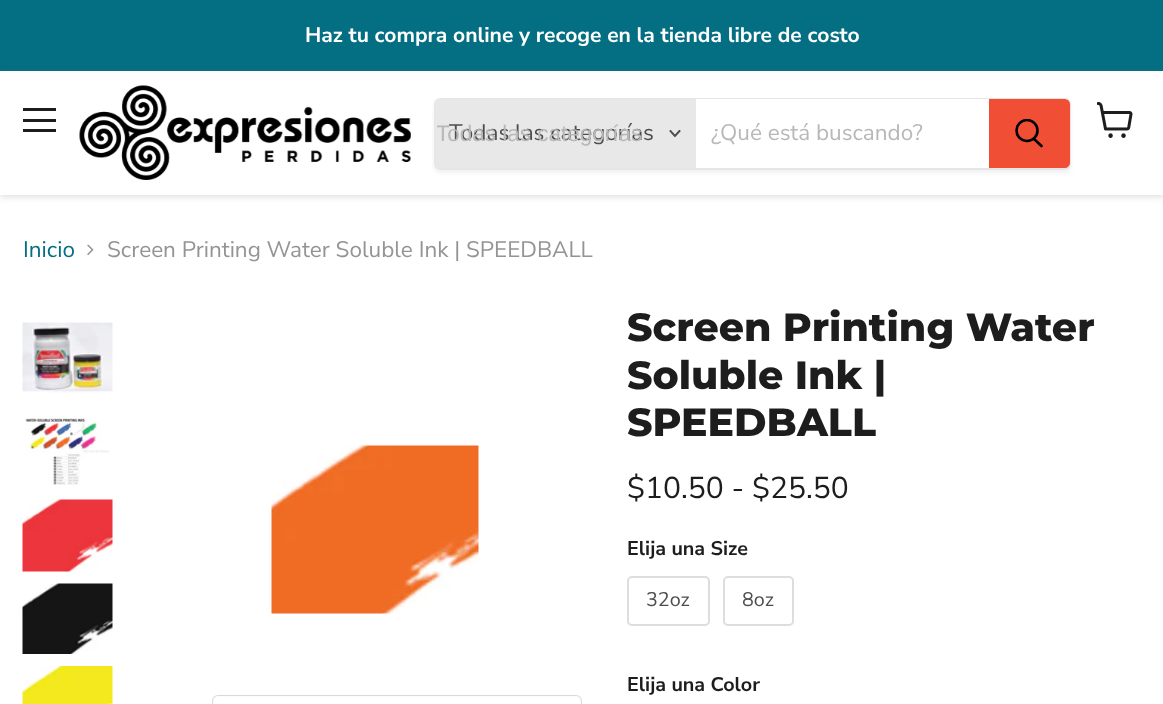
<svg xmlns="http://www.w3.org/2000/svg" width="1163" height="704" viewBox="0 0 1163 704">
  <style>
    .t1 { font: bold 21.1px Nunito Sans; fill: #fff; }
    .t2 { font: 22.5px Nunito Sans; fill: #4d4d4d; }
    .t3 { font: 22.5px Liberation Sans; fill: #b8b8b8; }
    .t4 { font: 22.5px Nunito Sans; fill: #b8b8b8; }
    .t5 { font: 22.5px Nunito Sans; fill: #046e82; }
    .t6 { font: 22.5px Nunito Sans; fill: #949494; }
    .t7 { font: 800 39.4px Montserrat; fill: #1d1d1d; }
    .t8 { font: 30px Nunito Sans; fill: #1d1d1d; }
    .t9 { font: bold 19.75px Nunito Sans; fill: #1d1d1d; }
    .t10 { font: 19.75px Nunito Sans; fill: #4d4d4d; }
  </style>
  <defs>
    <clipPath id="clip1"><path d="M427 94H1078V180H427ZM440 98H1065C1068.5 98 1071 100.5 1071 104V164C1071 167.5 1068.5 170 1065 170H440C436.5 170 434 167.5 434 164V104C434 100.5 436.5 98 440 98Z" clip-rule="evenodd"/></clipPath>
    <clipPath id="clip2"><rect x="437" y="120" width="258" height="26"/></clipPath>
    <clipPath id="clip3"><rect x="1014" y="119" width="30" height="31"/></clipPath>
  </defs>
  <rect width="100%" height="100%" fill="#fff"/>
  <rect x="0" y="0" width="1163" height="71" fill="#046e82"/>
  <text x="305" y="42" class="t1">Haz tu compra online y recoge en la tienda libre de costo</text>
  <rect x="0" y="72" width="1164" height="125" fill="#80808040" filter="blur(3px)"/>
  <rect x="0" y="71" width="1163" height="124" fill="#fff"/>
  <rect x="23" y="108" width="33" height="3" fill="#1d1d1d"/>
  <rect x="23" y="119" width="33" height="3" fill="#1d1d1d"/>
  <rect x="23" y="129" width="33" height="3" fill="#1d1d1d"/>
  <image x="1097" y="102" width="36" height="36" href="images/1.png"/>
  <image x="79" y="85" width="332" height="95" href="images/2.png"/>
  <g clip-path="url(#clip1)">
    <rect x="434" y="101" width="637" height="72" rx="6" fill="#8080801c" filter="blur(2px)"/>
  </g>
  <rect x="435" y="99" width="635" height="70" rx="5" fill="none" stroke="#80808033" stroke-width="2"/>
  <path d="M440 99H696V168H440C437 168 435 166 435 163V104C435 101 437 99 440 99Z" fill="#e8e8e8"/>
  <text x="449" y="140" class="t2">Todas las categorías</text>
  <g clip-path="url(#clip2)">
    <text x="436" y="141" class="t3">Todas las categorías</text>
  </g>
  <path d="M675 136L679.5 131M675 136L670.5 131" fill="none" stroke="#4d4d4d" stroke-width="1.9" stroke-linecap="square"/>
  <rect x="696" y="99" width="293" height="1" fill="#fff"/>
  <text x="711" y="140" class="t4">¿Qué está buscando?</text>
  <path d="M990 100H1065C1067 100 1069 102 1069 104V163C1069 165 1067 167 1065 167H990Z" fill="#f04f36" stroke="#f04f36" stroke-width="2"/>
  <path d="M1041.5 146L1034 139" fill="none" stroke="#000" stroke-width="2.6" stroke-linecap="round"/>
  <g clip-path="url(#clip3)">
    <circle cx="1027" cy="130.5" r="10.5" fill="none" stroke="#000" stroke-width="2.6"/>
  </g>
  <text x="23" y="257" class="t5">Inicio</text>
  <image x="87" y="244" width="7" height="12" href="images/3.png"/>
  <text x="107" y="257" class="t6">Screen Printing Water Soluble Ink | SPEEDBALL</text>
  <image x="22" y="322" width="91" height="71" href="images/4.png"/>
  <image x="25" y="418" width="84" height="67" href="images/5.png"/>
  <image x="22" y="499" width="91" height="73" href="images/6.png"/>
  <image x="22" y="583" width="91" height="71" href="images/7.png"/>
  <image x="22" y="666" width="91" height="38" href="images/8.png"/>
  <image x="271" y="445" width="208" height="169" href="images/9.png"/>
  <rect x="213" y="696" width="368" height="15" rx="5" fill="none" stroke="#d9d9d9" stroke-width="2"/>
  <rect x="213" y="696" width="368" height="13" rx="5" fill="#ffffffe6"/>
  <text x="627" y="341" class="t7">Screen Printing Water</text>
  <text x="627" y="389" class="t7">Soluble Ink |</text>
  <text x="627" y="436" class="t7">SPEEDBALL</text>
  <text x="627" y="498" class="t8">$10.50 - $25.50</text>
  <text x="627" y="555" class="t9">Elija una Size</text>
  <rect x="628" y="577" width="81" height="48" rx="4" fill="none" stroke="#ddd" stroke-width="2"/>
  <text x="646" y="606" class="t10">32oz</text>
  <rect x="724" y="577" width="69" height="48" rx="4" fill="none" stroke="#ddd" stroke-width="2"/>
  <text x="742" y="606" class="t10">8oz</text>
  <text x="627" y="691" class="t9">Elija una Color</text>
</svg>
